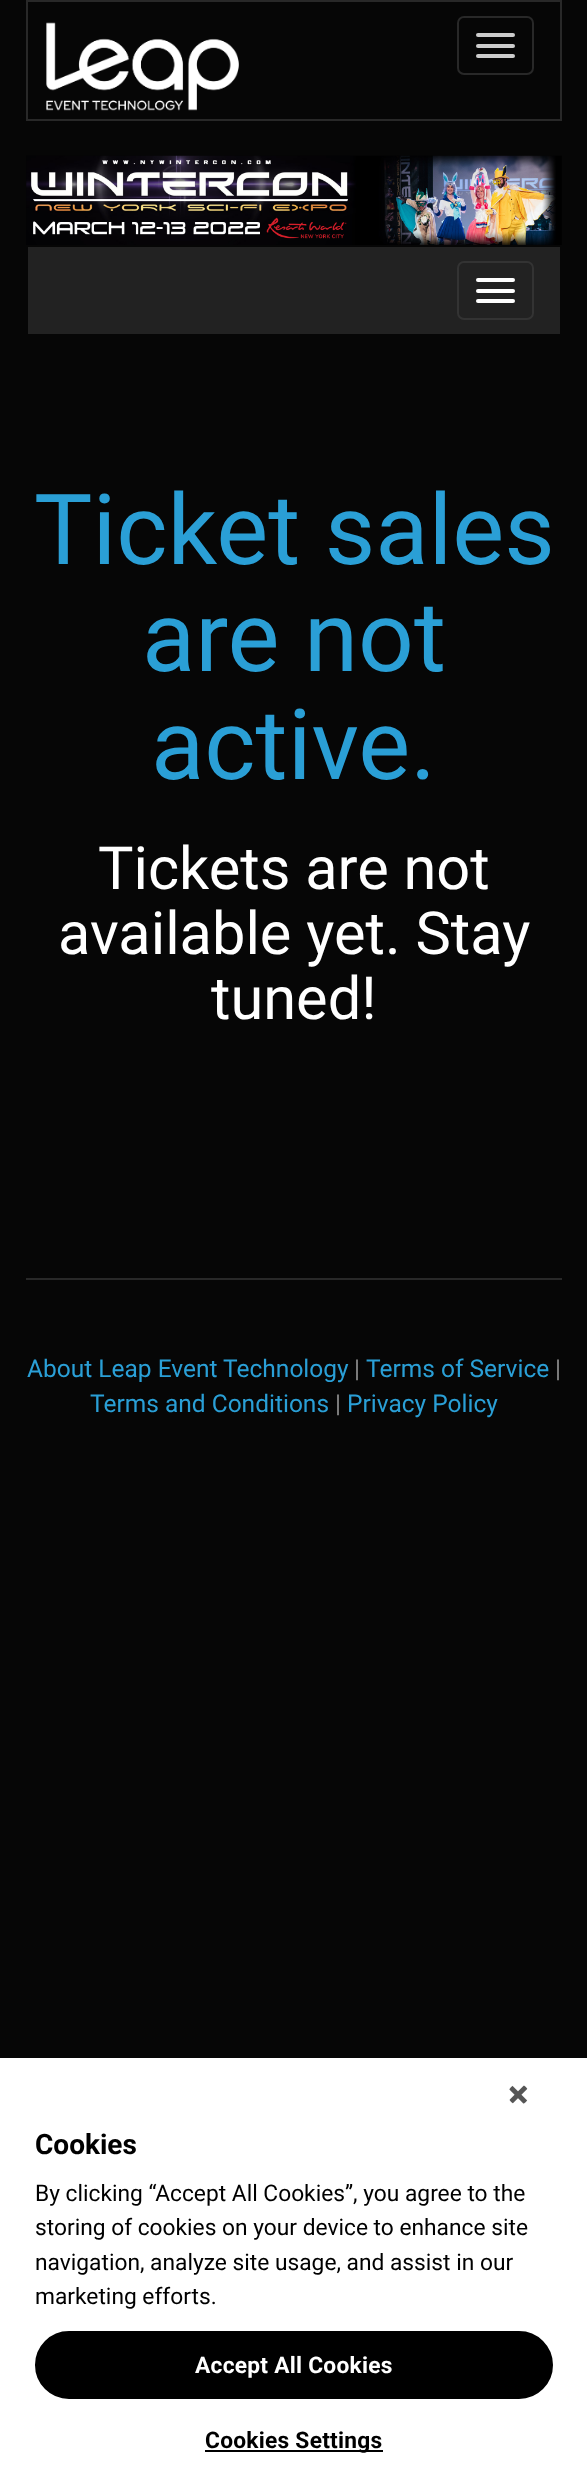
<svg xmlns="http://www.w3.org/2000/svg" width="587" height="2480" viewBox="0 0 587 2480">
  <style>
    .t1 { font: 98px Roboto; fill: #2a9fd6; }
    .t2 { font: 59.5px Roboto; fill: #fff; }
    .t3 { font: 24.5px Roboto; fill: #2a9fd6; }
    .t4 { font: 24.5px Roboto; fill: #888; }
    .t5 { font: bold 28px Roboto; fill: #000; }
    .t6 { font: 22.75px Roboto; fill: #000; }
    .t7 { font: bold 22.75px Roboto; letter-spacing: 0.25px; fill: #fff; }
    .t8 { font: bold 22.75px Roboto; letter-spacing: 0.25px; fill: #000; }
  </style>
  <rect width="100%" height="100%" fill="#060606"/>
  <rect x="27" y="1" width="534" height="119" fill="none" stroke="#282828" stroke-width="2"/>
  <image x="46" y="22" width="193" height="89" href="images/1.png"/>
  <rect x="458" y="17" width="75" height="57" rx="6" fill="none" stroke="#282828" stroke-width="2"/>
  <rect x="476" y="33" width="39" height="4" rx="2" fill="#ccc"/>
  <rect x="476" y="44" width="39" height="4" rx="2" fill="#ccc"/>
  <rect x="476" y="54" width="39" height="4" rx="2" fill="#ccc"/>
  <image x="26" y="155" width="536" height="90" href="images/2.png"/>
  <rect x="28" y="247" width="532" height="87" fill="#222"/>
  <rect x="458" y="262" width="75" height="57" rx="6" fill="none" stroke="#333" stroke-width="2"/>
  <rect x="476" y="278" width="39" height="4" rx="2" fill="#fff"/>
  <rect x="476" y="289" width="39" height="4" rx="2" fill="#fff"/>
  <rect x="476" y="299" width="39" height="4" rx="2" fill="#fff"/>
  <text x="34" y="564" class="t1">Ticket sales</text>
  <text x="142" y="671" class="t1">are not</text>
  <text x="151" y="779" class="t1">active.</text>
  <text x="98" y="889" class="t2">Tickets are not</text>
  <text x="58" y="954" class="t2">available yet. Stay</text>
  <text x="211" y="1019" class="t2">tuned!</text>
  <rect x="26" y="1278" width="536" height="2" fill="#282828"/>
  <text x="27" y="1377" class="t3">About Leap Event Technology</text>
  <text x="354" y="1377" class="t4">|</text>
  <text x="366" y="1377" class="t3">Terms of Service</text>
  <text x="555" y="1377" class="t4">|</text>
  <text x="90" y="1412" class="t3">Terms and Conditions</text>
  <text x="335" y="1412" class="t4">|</text>
  <text x="347" y="1412" class="t3">Privacy Policy</text>
  <rect x="0" y="2058" width="587" height="422" fill="#fff"/>
  <image x="509" y="2085" width="19" height="19" href="images/3.png"/>
  <text x="35" y="2154" class="t5">Cookies</text>
  <text x="35" y="2201" class="t6">By clicking “Accept All Cookies”, you agree to the</text>
  <text x="35" y="2235" class="t6">storing of cookies on your device to enhance site</text>
  <text x="35" y="2270" class="t6">navigation, analyze site usage, and assist in our</text>
  <text x="35" y="2304" class="t6">marketing efforts.</text>
  <rect x="36" y="2332" width="516" height="66" rx="33" fill="#000" stroke="#000" stroke-width="2"/>
  <text x="195" y="2373" class="t7">Accept All Cookies</text>
  <rect x="205" y="2450" width="178" height="2" fill="#000"/>
  <text x="205" y="2448" class="t8">Cookies Settings</text>
</svg>
